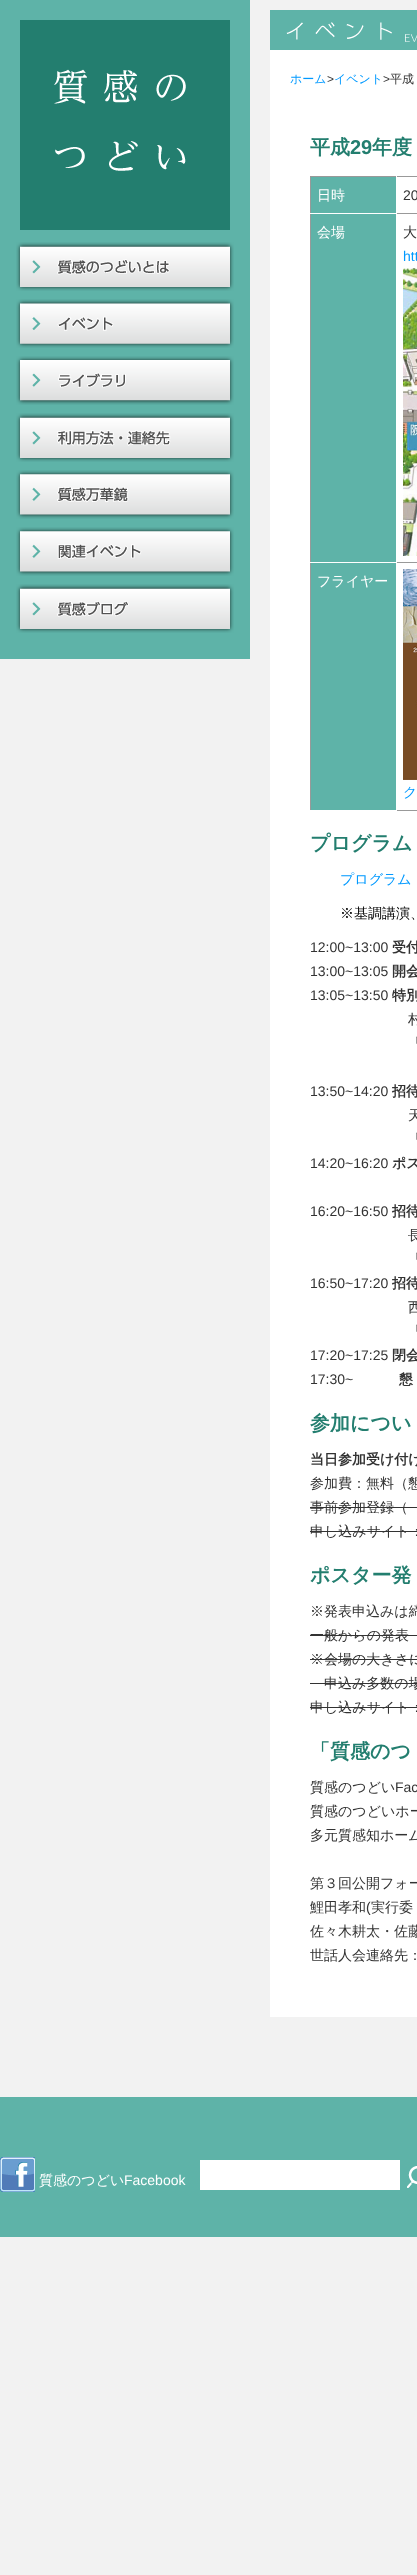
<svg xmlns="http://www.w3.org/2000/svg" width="417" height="2575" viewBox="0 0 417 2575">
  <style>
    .t1 { font: 500 12px WenQuanYi Zen Hei; fill: #09f; }
    .t2 { font: 12px Liberation Sans; fill: #333; }
    .t3 { font: 500 12px WenQuanYi Zen Hei; fill: #333; }
    .t4 { font: bold 20px WenQuanYi Zen Hei; fill: #237e6f; }
    .t5 { font: bold 20px Liberation Sans; fill: #237e6f; }
    .t6 { font: 500 14px WenQuanYi Zen Hei; fill: #fff; }
    .t7 { font: 14px Liberation Sans; fill: #333; }
    .t8 { font: 500 14px WenQuanYi Zen Hei; fill: #333; }
    .t9 { font: 14px Liberation Sans; fill: #09f; }
    .t10 { font: 500 14px WenQuanYi Zen Hei; fill: #09f; }
    .t11 { font: 500 14px WenQuanYi Zen Hei; fill: #000; }
    .t12 { font: bold 14px WenQuanYi Zen Hei; fill: #333; }
    .t13 { font: 14px Liberation Sans; fill: #fff; }
  </style>
  <rect width="100%" height="100%" fill="#f2f2f2"/>
  <rect x="0" y="0" width="250" height="659" fill="#5eb3a8"/>
  <image x="20" y="20" width="210" height="210" href="images/1.png"/>
  <image x="16" y="242" width="218" height="49" href="images/2.png"/>
  <image x="16" y="299" width="218" height="49" href="images/3.png"/>
  <image x="16" y="356" width="218" height="49" href="images/4.png"/>
  <image x="16" y="413" width="218" height="49" href="images/5.png"/>
  <image x="16" y="470" width="218" height="49" href="images/6.png"/>
  <image x="16" y="527" width="218" height="49" href="images/7.png"/>
  <image x="16" y="584" width="218" height="49" href="images/8.png"/>
  <rect x="270" y="50" width="147" height="1967" fill="#fff"/>
  <rect x="270" y="10" width="147" height="40" fill="#5eb3a8"/>
  <image x="286" y="22" width="131" height="20" href="images/9.png"/>
  <text x="290" y="83" class="t1">ホーム</text>
  <text x="327" y="83" class="t2">&gt;</text>
  <text x="334" y="83" class="t1">イベント</text>
  <text x="383" y="83" class="t2">&gt;</text>
  <text x="390" y="83" class="t3">平成</text>
  <text x="310" y="154" class="t4">平成</text>
  <text x="350" y="154" class="t5">29</text>
  <text x="372" y="154" class="t4">年度</text>
  <rect x="310" y="176" width="107" height="1" fill="#999"/>
  <rect x="310" y="176" width="1" height="635" fill="#999"/>
  <rect x="311" y="177" width="85" height="36" fill="#5eb3a8"/>
  <rect x="396" y="213" width="21" height="1" fill="#999"/>
  <rect x="396" y="176" width="1" height="38" fill="#fff"/>
  <rect x="310" y="213" width="1" height="1" fill="#fff"/>
  <text x="317" y="200" class="t6">日時</text>
  <text x="403" y="200" class="t7">20</text>
  <rect x="311" y="214" width="85" height="348" fill="#5eb3a8"/>
  <rect x="396" y="562" width="21" height="1" fill="#999"/>
  <rect x="396" y="562" width="1" height="1" fill="#fff"/>
  <rect x="310" y="562" width="1" height="1" fill="#fff"/>
  <text x="317" y="237" class="t6">会場</text>
  <text x="403" y="237" class="t8">大</text>
  <text x="403" y="261" class="t9">htt</text>
  <image x="403" y="268" width="14" height="288" href="images/10.png"/>
  <rect x="311" y="563" width="85" height="247" fill="#5eb3a8"/>
  <rect x="396" y="810" width="21" height="1" fill="#999"/>
  <rect x="396" y="810" width="1" height="1" fill="#fff"/>
  <rect x="310" y="810" width="1" height="1" fill="#fff"/>
  <text x="317" y="586" class="t6">フライヤー</text>
  <image x="403" y="569" width="14" height="211" href="images/11.png"/>
  <text x="403" y="797" class="t10">ク</text>
  <text x="310" y="850" class="t4">プログラム</text>
  <text x="340" y="884" class="t10">プログラム</text>
  <text x="340" y="918" class="t11">※基調講演、</text>
  <text x="310" y="952" class="t7">12:00~13:00</text>
  <text x="392" y="952" class="t12">受付</text>
  <text x="310" y="976" class="t7">13:00~13:05</text>
  <text x="392" y="976" class="t12">開会</text>
  <text x="310" y="1000" class="t7">13:05~13:50</text>
  <text x="392" y="1000" class="t12">特別</text>
  <text x="408" y="1024" class="t8">村</text>
  <text x="408" y="1048" class="t8">「</text>
  <text x="310" y="1096" class="t7">13:50~14:20</text>
  <text x="392" y="1096" class="t12">招待</text>
  <text x="408" y="1120" class="t8">天</text>
  <text x="408" y="1144" class="t8">「</text>
  <text x="310" y="1168" class="t7">14:20~16:20</text>
  <text x="392" y="1168" class="t12">ポス</text>
  <text x="310" y="1216" class="t7">16:20~16:50</text>
  <text x="392" y="1216" class="t12">招待</text>
  <text x="408" y="1240" class="t8">長</text>
  <text x="408" y="1264" class="t8">「</text>
  <text x="310" y="1288" class="t7">16:50~17:20</text>
  <text x="392" y="1288" class="t12">招待</text>
  <text x="408" y="1312" class="t8">西</text>
  <text x="408" y="1336" class="t8">「</text>
  <text x="310" y="1360" class="t7">17:20~17:25</text>
  <text x="392" y="1360" class="t12">閉会</text>
  <text x="310" y="1384" class="t7">17:30~</text>
  <text x="399" y="1384" class="t12">懇</text>
  <text x="310" y="1430" class="t4">参加につい</text>
  <text x="310" y="1464" class="t12">当日参加受け付け</text>
  <text x="310" y="1488" class="t8">参加費：無料（懇</text>
  <text x="310" y="1512" class="t8">事前参加登録（</text>
  <rect x="310" y="1507" width="107" height="1" fill="#333"/>
  <text x="310" y="1536" class="t8">申し込みサイト：</text>
  <rect x="310" y="1531" width="107" height="1" fill="#333"/>
  <text x="310" y="1582" class="t4">ポスター発</text>
  <text x="310" y="1616" class="t8">※発表申込みは締</text>
  <text x="310" y="1640" class="t8">一般からの発表</text>
  <rect x="310" y="1635" width="107" height="1" fill="#333"/>
  <text x="310" y="1664" class="t8">※会場の大きさに</text>
  <rect x="310" y="1659" width="107" height="1" fill="#333"/>
  <text x="324" y="1688" class="t8">申込み多数の場</text>
  <rect x="310" y="1683" width="107" height="1" fill="#333"/>
  <text x="310" y="1712" class="t8">申し込みサイト：</text>
  <rect x="310" y="1707" width="107" height="1" fill="#333"/>
  <text x="310" y="1758" class="t4">「質感のつ</text>
  <text x="310" y="1792" class="t8">質感のつどい</text>
  <text x="395" y="1792" class="t7">Fac</text>
  <text x="310" y="1816" class="t8">質感のつどいホー</text>
  <text x="310" y="1840" class="t8">多元質感知ホーム</text>
  <text x="310" y="1888" class="t8">第３回公開フォー</text>
  <text x="310" y="1912" class="t8">鯉田孝和</text>
  <text x="366" y="1912" class="t7">(</text>
  <text x="371" y="1912" class="t8">実行委</text>
  <text x="310" y="1936" class="t8">佐々木耕太・佐藤</text>
  <text x="310" y="1960" class="t8">世話人会連絡先：</text>
  <rect x="0" y="2097" width="417" height="140" fill="#5eb3a8"/>
  <image x="0" y="2157" width="35" height="35" href="images/12.png"/>
  <text x="39" y="2185" class="t6">質感のつどい</text>
  <text x="124" y="2185" class="t13">Facebook</text>
  <rect x="200" y="2160" width="200" height="30" fill="#fff"/>
  <image x="407" y="2166" width="10" height="22" href="images/13.png"/>
</svg>
